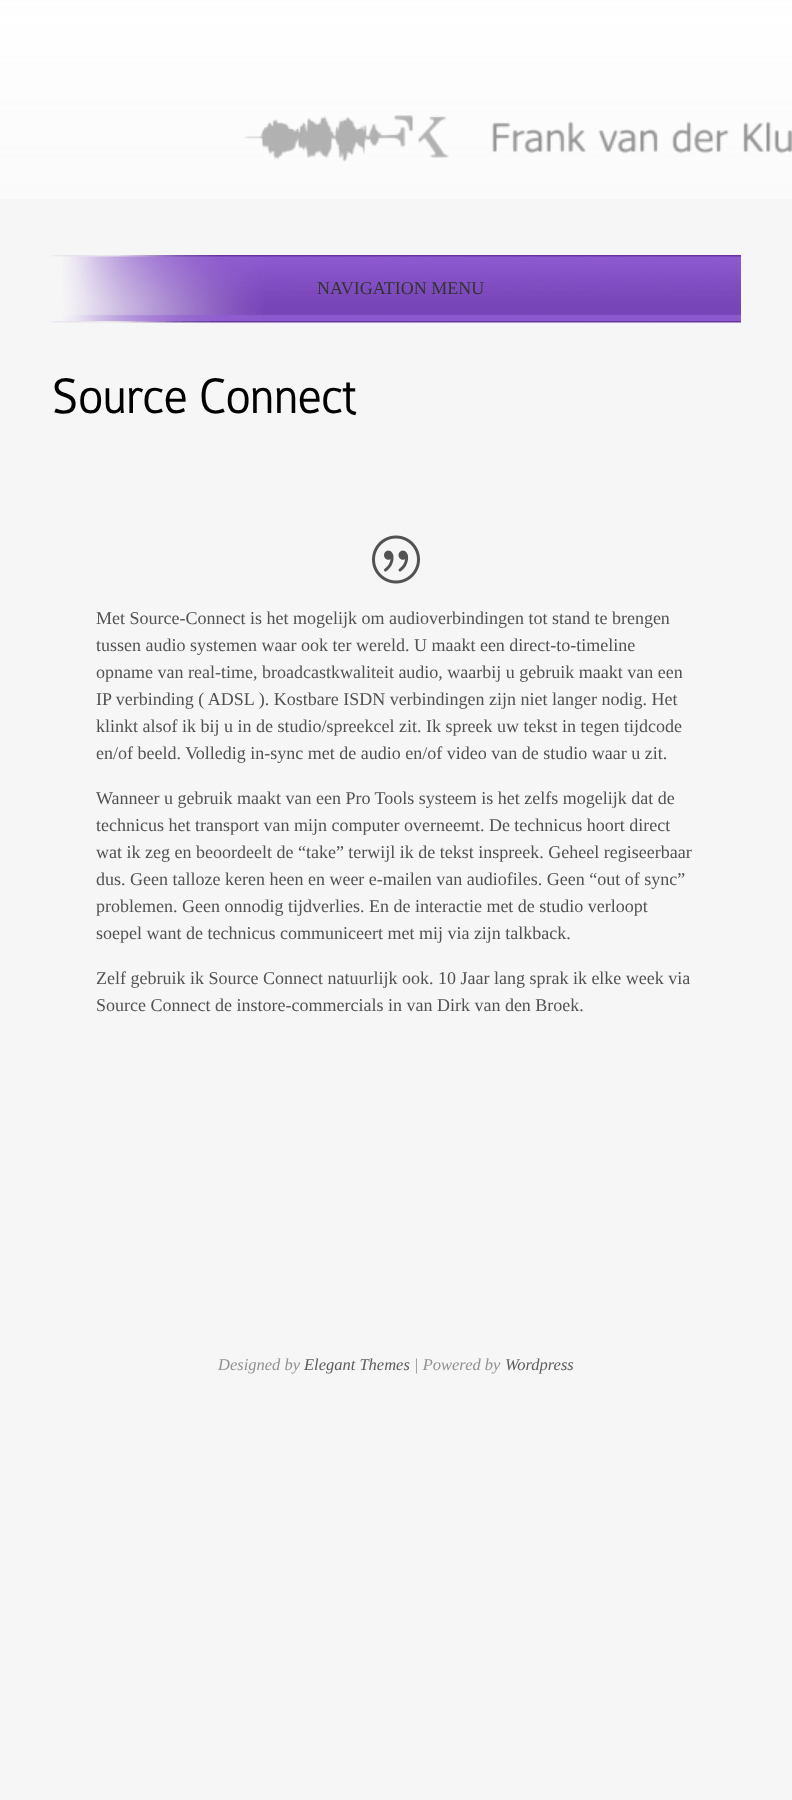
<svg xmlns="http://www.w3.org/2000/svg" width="792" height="1800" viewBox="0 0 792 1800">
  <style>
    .t1 { font: 18px Liberation Serif; fill: #333; }
    .t2 { font: bold 51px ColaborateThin; fill: #000; }
    .t3 { font: 18px Liberation Serif; fill: #525252; }
    .t4 { font: italic 16.5px Liberation Serif; fill: #919191; }
    .t5 { font: italic 16.5px Liberation Serif; fill: #5e5b5b; }
  </style>
  <rect width="100%" height="100%" fill="#f6f6f6"/>
  <image x="0" y="0" width="792" height="199" href="images/1.png"/>
  <image x="244" y="115" width="548" height="47" href="images/2.png"/>
  <image x="63" y="256" width="678" height="65" href="images/3.png"/>
  <image x="51" y="255" width="690" height="2" href="images/4.png"/>
  <text x="317" y="294" class="t1">NAVIGATION MENU</text>
  <image x="51" y="321" width="690" height="2" href="images/5.png"/>
  <text x="51" y="413" class="t2">Source Connect</text>
  <image x="372" y="535" width="48" height="49" href="images/6.png"/>
  <text x="96" y="624" class="t3">Met Source-Connect is het mogelijk om audioverbindingen tot stand te brengen</text>
  <text x="96" y="651" class="t3">tussen audio systemen waar ook ter wereld. U maakt een direct-to-timeline</text>
  <text x="96" y="678" class="t3">opname van real-time, broadcastkwaliteit audio, waarbij u gebruik maakt van een</text>
  <text x="96" y="705" class="t3">IP verbinding ( ADSL ). Kostbare ISDN verbindingen zijn niet langer nodig. Het</text>
  <text x="96" y="732" class="t3">klinkt alsof ik bij u in de studio/spreekcel zit. Ik spreek uw tekst in tegen tijdcode</text>
  <text x="96" y="759" class="t3">en/of beeld. Volledig in-sync met de audio en/of video van de studio waar u zit.</text>
  <text x="96" y="804" class="t3">Wanneer u gebruik maakt van een Pro Tools systeem is het zelfs mogelijk dat de</text>
  <text x="96" y="831" class="t3">technicus het transport van mijn computer overneemt. De technicus hoort direct</text>
  <text x="96" y="858" class="t3">wat ik zeg en beoordeelt de “take” terwijl ik de tekst inspreek. Geheel regiseerbaar</text>
  <text x="96" y="885" class="t3">dus. Geen talloze keren heen en weer e-mailen van audiofiles. Geen “out of sync”</text>
  <text x="96" y="912" class="t3">problemen. Geen onnodig tijdverlies. En de interactie met de studio verloopt</text>
  <text x="96" y="939" class="t3">soepel want de technicus communiceert met mij via zijn talkback.</text>
  <text x="96" y="984" class="t3">Zelf gebruik ik Source Connect natuurlijk ook. 10 Jaar lang sprak ik elke week via</text>
  <text x="96" y="1011" class="t3">Source Connect de instore-commercials in van Dirk van den Broek.</text>
  <text x="218" y="1370" class="t4">Designed by</text>
  <text x="304" y="1370" class="t5">Elegant Themes</text>
  <text x="414" y="1370" class="t4">| Powered by</text>
  <text x="505" y="1370" class="t5">Wordpress</text>
</svg>
